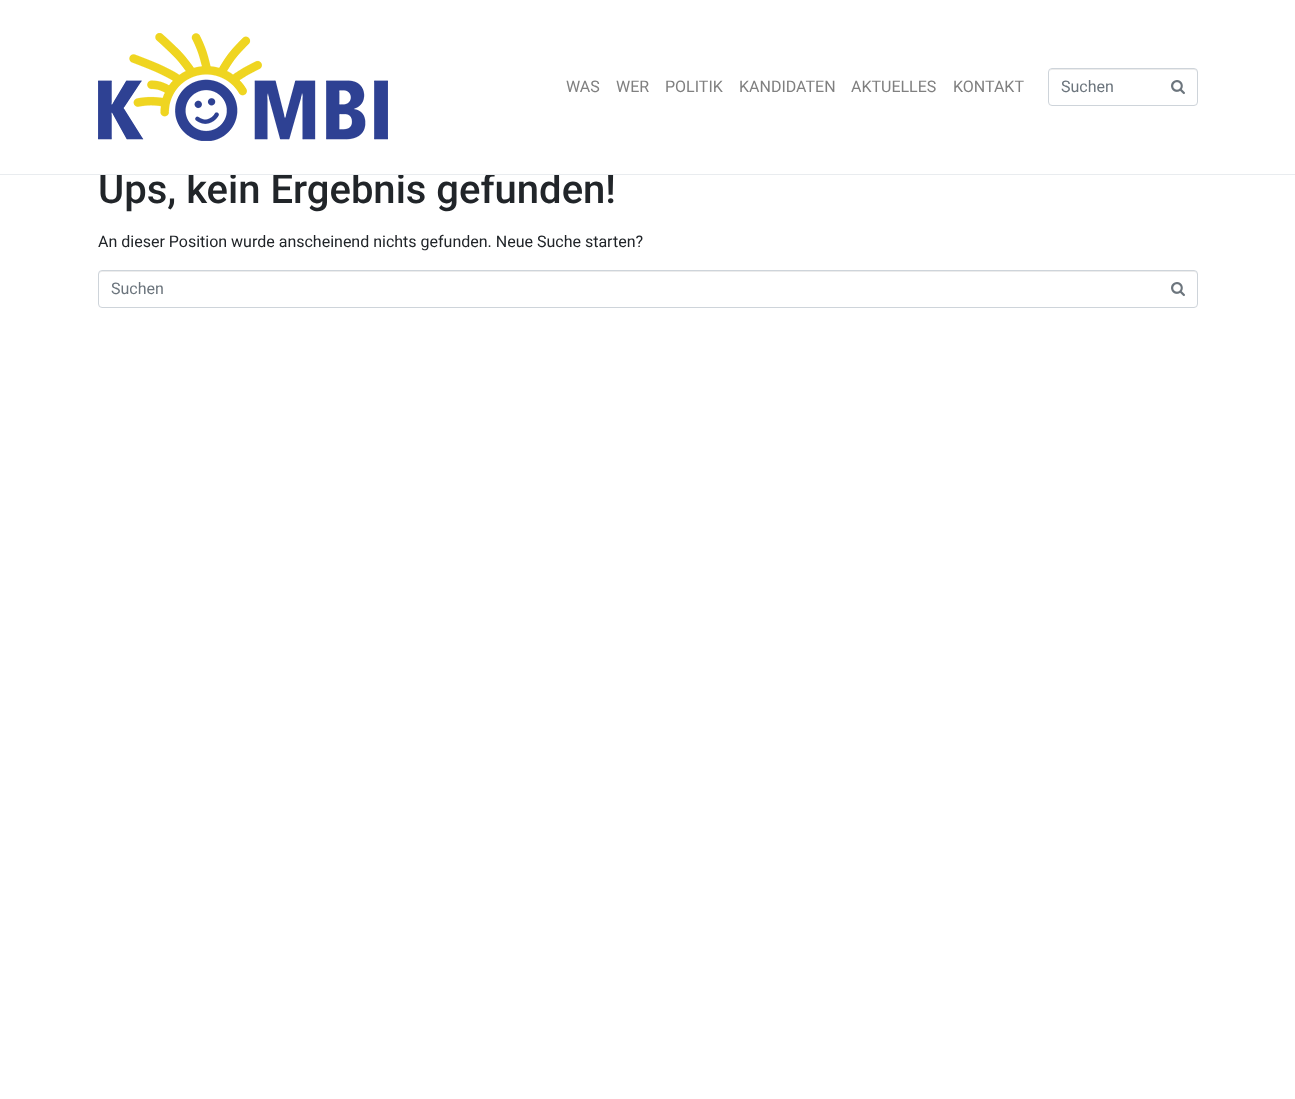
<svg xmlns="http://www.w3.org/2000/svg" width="1295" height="1099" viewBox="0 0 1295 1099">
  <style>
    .t1 { font: 500 40px Roboto; fill: #212529; }
    .t2 { font: 16px Roboto; fill: #808080; }
    .t3 { font: 16px Roboto; fill: #6c757d; }
    .t4 { font: 16px Roboto; fill: #212529; }
  </style>
  <defs>
    <clipPath id="clip1"><rect x="1048" y="68" width="150" height="38"/></clipPath>
  </defs>
  <rect width="100%" height="100%" fill="#fff"/>
  <text x="98" y="203" class="t1">Ups, kein Ergebnis gefunden!</text>
  <rect x="188" y="172" width="371" height="2" fill="#fff"/>
  <rect x="0" y="174" width="1295" height="1" fill="#e9ecef"/>
  <image x="98" y="33" width="290" height="108" href="images/1.png"/>
  <text x="566" y="92" class="t2">WAS</text>
  <text x="616" y="92" class="t2">WER</text>
  <text x="665" y="92" class="t2">POLITIK</text>
  <text x="739" y="92" class="t2">KANDIDATEN</text>
  <text x="851" y="92" class="t2">AKTUELLES</text>
  <text x="953" y="92" class="t2">KONTAKT</text>
  <g clip-path="url(#clip1)">
    <path d="M1052 70H1194C1196 70 1197 71 1197 73C1197 71 1197 70 1195 69H1076C1068 69 1049 64 1049 73C1049 71 1050 70 1052 70Z" fill="#ececec"/>
  </g>
  <rect x="1048.5" y="68.5" width="149" height="37" rx="3.5" fill="none" stroke="#ced4da"/>
  <text x="1061" y="92" class="t3">Suchen</text>
  <image x="1171" y="80" width="14" height="15" href="images/2.png"/>
  <text x="98" y="247" class="t4">An dieser Position wurde anscheinend nichts gefunden. Neue Suche starten?</text>
  <path d="M102 272H1194C1196 272 1197 273 1197 275V274C1197 272 1196 271 1194 271H102C100 271 99 272 99 274V275C99 273 100 272 102 272Z" fill="#ececec"/>
  <rect x="98.5" y="270.5" width="1099" height="37" rx="3.5" fill="none" stroke="#ced4da"/>
  <text x="111" y="294" class="t3">Suchen</text>
  <image x="1171" y="282" width="14" height="15" href="images/2.png"/>
</svg>
